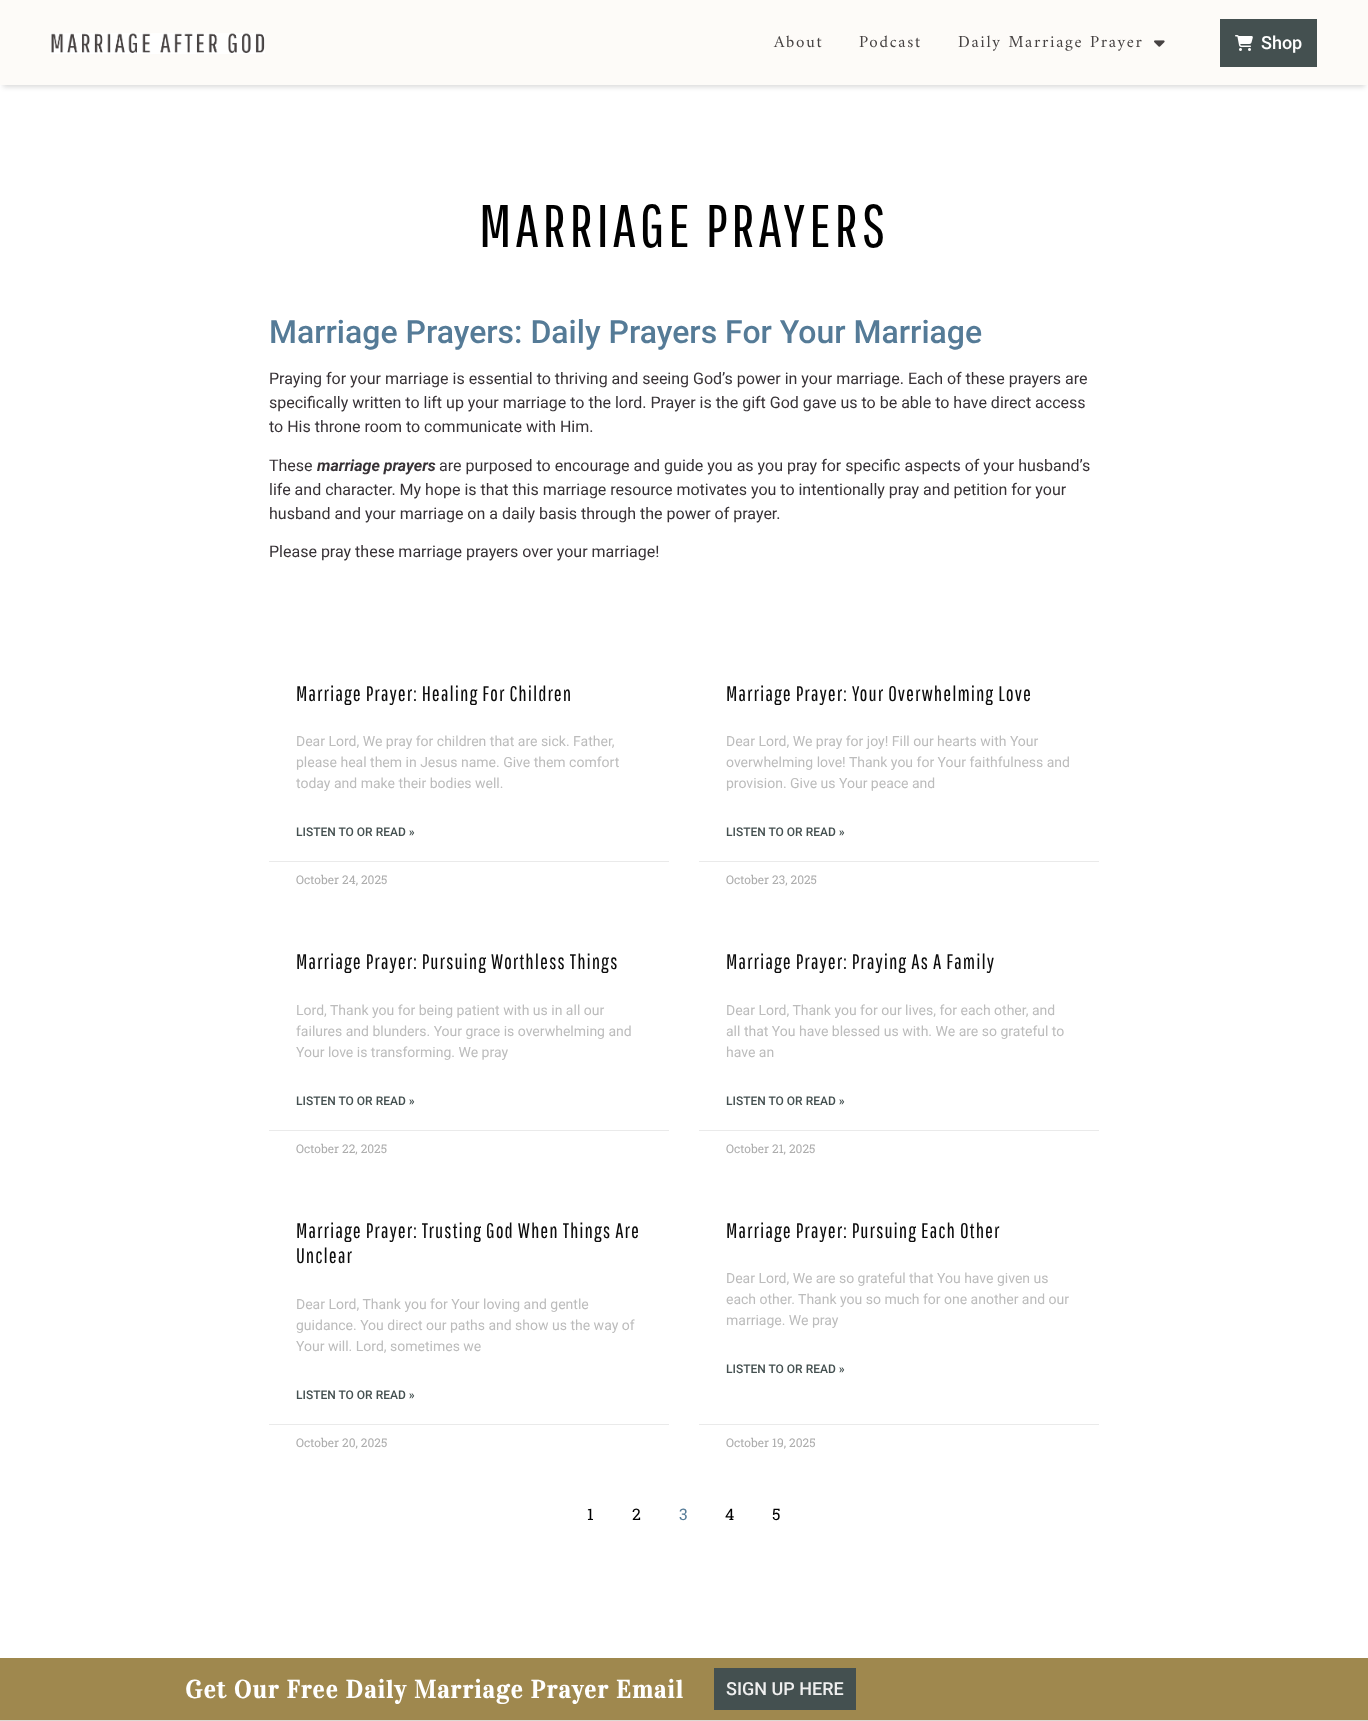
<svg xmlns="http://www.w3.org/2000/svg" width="1368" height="1721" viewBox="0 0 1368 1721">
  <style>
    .t1 { font: 17px Amiri; letter-spacing: 1.7px; fill: #464242; }
    .t2 { font: 500 18px Roboto; fill: #fff; }
    .t3 { font: 60px Pathway Gothic One; letter-spacing: 3.75px; fill: #000; }
    .t4 { font: 500 32px Roboto; fill: #557b97; }
    .t5 { font: 16px Roboto; fill: #373236; }
    .t6 { font: italic bold 16px Roboto; fill: #373236; }
    .t7 { font: 21px Pathway Gothic One; letter-spacing: 1px; fill: #0c0c0c; }
    .t8 { font: 14px Roboto; fill: #bcbcbc; }
    .t9 { font: 500 12px Roboto; fill: #445050; }
    .t10 { font: 12px Roboto Slab; fill: #adadad; }
    .t11 { font: 16px Roboto Slab; fill: #000; }
    .t12 { font: 16px Roboto Slab; fill: #557b97; }
    .t13 { font: bold 25px Vidaloka; letter-spacing: 1.2px; fill: #fff; }
    .t14 { font: 500 18px Roboto; fill: #efefef; }
  </style>
  <rect width="100%" height="100%" fill="#fff"/>
  <rect x="3" y="8" width="1362" height="79" fill="#00000026" filter="blur(2.5px)"/>
  <rect x="0" y="0" width="1368" height="85" fill="#fdfbf8"/>
  <image x="50" y="33" width="215" height="21" href="images/1.png"/>
  <text x="774" y="47" class="t1">About</text>
  <text x="859" y="47" class="t1">Podcast</text>
  <text x="958" y="47" class="t1">Daily Marriage Prayer</text>
  <image x="1154" y="40" width="11" height="7" href="images/2.png"/>
  <rect x="1220" y="19" width="97" height="48" fill="#445050"/>
  <image x="1235" y="35" width="18" height="16" href="images/3.png"/>
  <text x="1261" y="49" class="t2">Shop</text>
  <text x="479" y="247" class="t3">MARRIAGE PRAYERS</text>
  <text x="269" y="343" class="t4">Marriage Prayers: Daily Prayers For Your Marriage</text>
  <text x="269" y="384" class="t5">Praying for your marriage is essential to thriving and seeing God’s power in your marriage. Each of these prayers are</text>
  <text x="269" y="408" class="t5">specifically written to lift up your marriage to the lord. Prayer is the gift God gave us to be able to have direct access</text>
  <text x="269" y="432" class="t5">to His throne room to communicate with Him.</text>
  <text x="269" y="471" class="t5">These</text>
  <text x="317" y="471" class="t6">marriage prayers</text>
  <text x="439" y="471" class="t5">are purposed to encourage and guide you as you pray for specific aspects of your husband’s</text>
  <text x="269" y="495" class="t5">life and character. My hope is that this marriage resource motivates you to intentionally pray and petition for your</text>
  <text x="269" y="519" class="t5">husband and your marriage on a daily basis through the power of prayer.</text>
  <text x="269" y="557" class="t5">Please pray these marriage prayers over your marriage!</text>
  <text x="296" y="701" class="t7">Marriage Prayer: Healing For Children</text>
  <text x="296" y="746" class="t8">Dear Lord, We pray for children that are sick. Father,</text>
  <text x="296" y="767" class="t8">please heal them in Jesus name. Give them comfort</text>
  <text x="296" y="788" class="t8">today and make their bodies well.</text>
  <text x="296" y="836" class="t9">LISTEN TO OR READ »</text>
  <rect x="269" y="861" width="400" height="1" fill="#eaeaea"/>
  <text x="296" y="884" class="t10">October 24, 2025</text>
  <text x="726" y="701" class="t7">Marriage Prayer: Your Overwhelming Love</text>
  <text x="726" y="746" class="t8">Dear Lord, We pray for joy! Fill our hearts with Your</text>
  <text x="726" y="767" class="t8">overwhelming love! Thank you for Your faithfulness and</text>
  <text x="726" y="788" class="t8">provision. Give us Your peace and</text>
  <text x="726" y="836" class="t9">LISTEN TO OR READ »</text>
  <rect x="699" y="861" width="400" height="1" fill="#eaeaea"/>
  <text x="726" y="884" class="t10">October 23, 2025</text>
  <text x="296" y="969" class="t7">Marriage Prayer: Pursuing Worthless Things</text>
  <text x="296" y="1015" class="t8">Lord, Thank you for being patient with us in all our</text>
  <text x="296" y="1036" class="t8">failures and blunders. Your grace is overwhelming and</text>
  <text x="296" y="1057" class="t8">Your love is transforming. We pray</text>
  <text x="296" y="1105" class="t9">LISTEN TO OR READ »</text>
  <rect x="269" y="1130" width="400" height="1" fill="#eaeaea"/>
  <text x="296" y="1153" class="t10">October 22, 2025</text>
  <text x="726" y="969" class="t7">Marriage Prayer: Praying As A Family</text>
  <text x="726" y="1015" class="t8">Dear Lord, Thank you for our lives, for each other, and</text>
  <text x="726" y="1036" class="t8">all that You have blessed us with. We are so grateful to</text>
  <text x="726" y="1057" class="t8">have an</text>
  <text x="726" y="1105" class="t9">LISTEN TO OR READ »</text>
  <rect x="699" y="1130" width="400" height="1" fill="#eaeaea"/>
  <text x="726" y="1153" class="t10">October 21, 2025</text>
  <text x="296" y="1238" class="t7">Marriage Prayer: Trusting God When Things Are</text>
  <text x="296" y="1263" class="t7">Unclear</text>
  <text x="296" y="1309" class="t8">Dear Lord, Thank you for Your loving and gentle</text>
  <text x="296" y="1330" class="t8">guidance. You direct our paths and show us the way of</text>
  <text x="296" y="1351" class="t8">Your will. Lord, sometimes we</text>
  <text x="296" y="1399" class="t9">LISTEN TO OR READ »</text>
  <rect x="269" y="1424" width="400" height="1" fill="#eaeaea"/>
  <text x="296" y="1447" class="t10">October 20, 2025</text>
  <text x="726" y="1238" class="t7">Marriage Prayer: Pursuing Each Other</text>
  <text x="726" y="1283" class="t8">Dear Lord, We are so grateful that You have given us</text>
  <text x="726" y="1304" class="t8">each other. Thank you so much for one another and our</text>
  <text x="726" y="1325" class="t8">marriage. We pray</text>
  <text x="726" y="1373" class="t9">LISTEN TO OR READ »</text>
  <rect x="699" y="1424" width="400" height="1" fill="#eaeaea"/>
  <text x="726" y="1447" class="t10">October 19, 2025</text>
  <text x="587" y="1520" class="t11">1</text>
  <text x="632" y="1520" class="t11">2</text>
  <text x="679" y="1520" class="t12">3</text>
  <text x="725" y="1520" class="t11">4</text>
  <text x="772" y="1520" class="t11">5</text>
  <rect x="0" y="1658" width="1368" height="62" fill="#9f884e"/>
  <rect x="0" y="1720" width="1368" height="1" fill="#ddd8d3"/>
  <text x="185" y="1698" class="t13">Get Our Free Daily Marriage Prayer Email</text>
  <rect x="714" y="1668" width="142" height="42" fill="#445050"/>
  <text x="726" y="1695" class="t14">SIGN UP HERE</text>
</svg>
